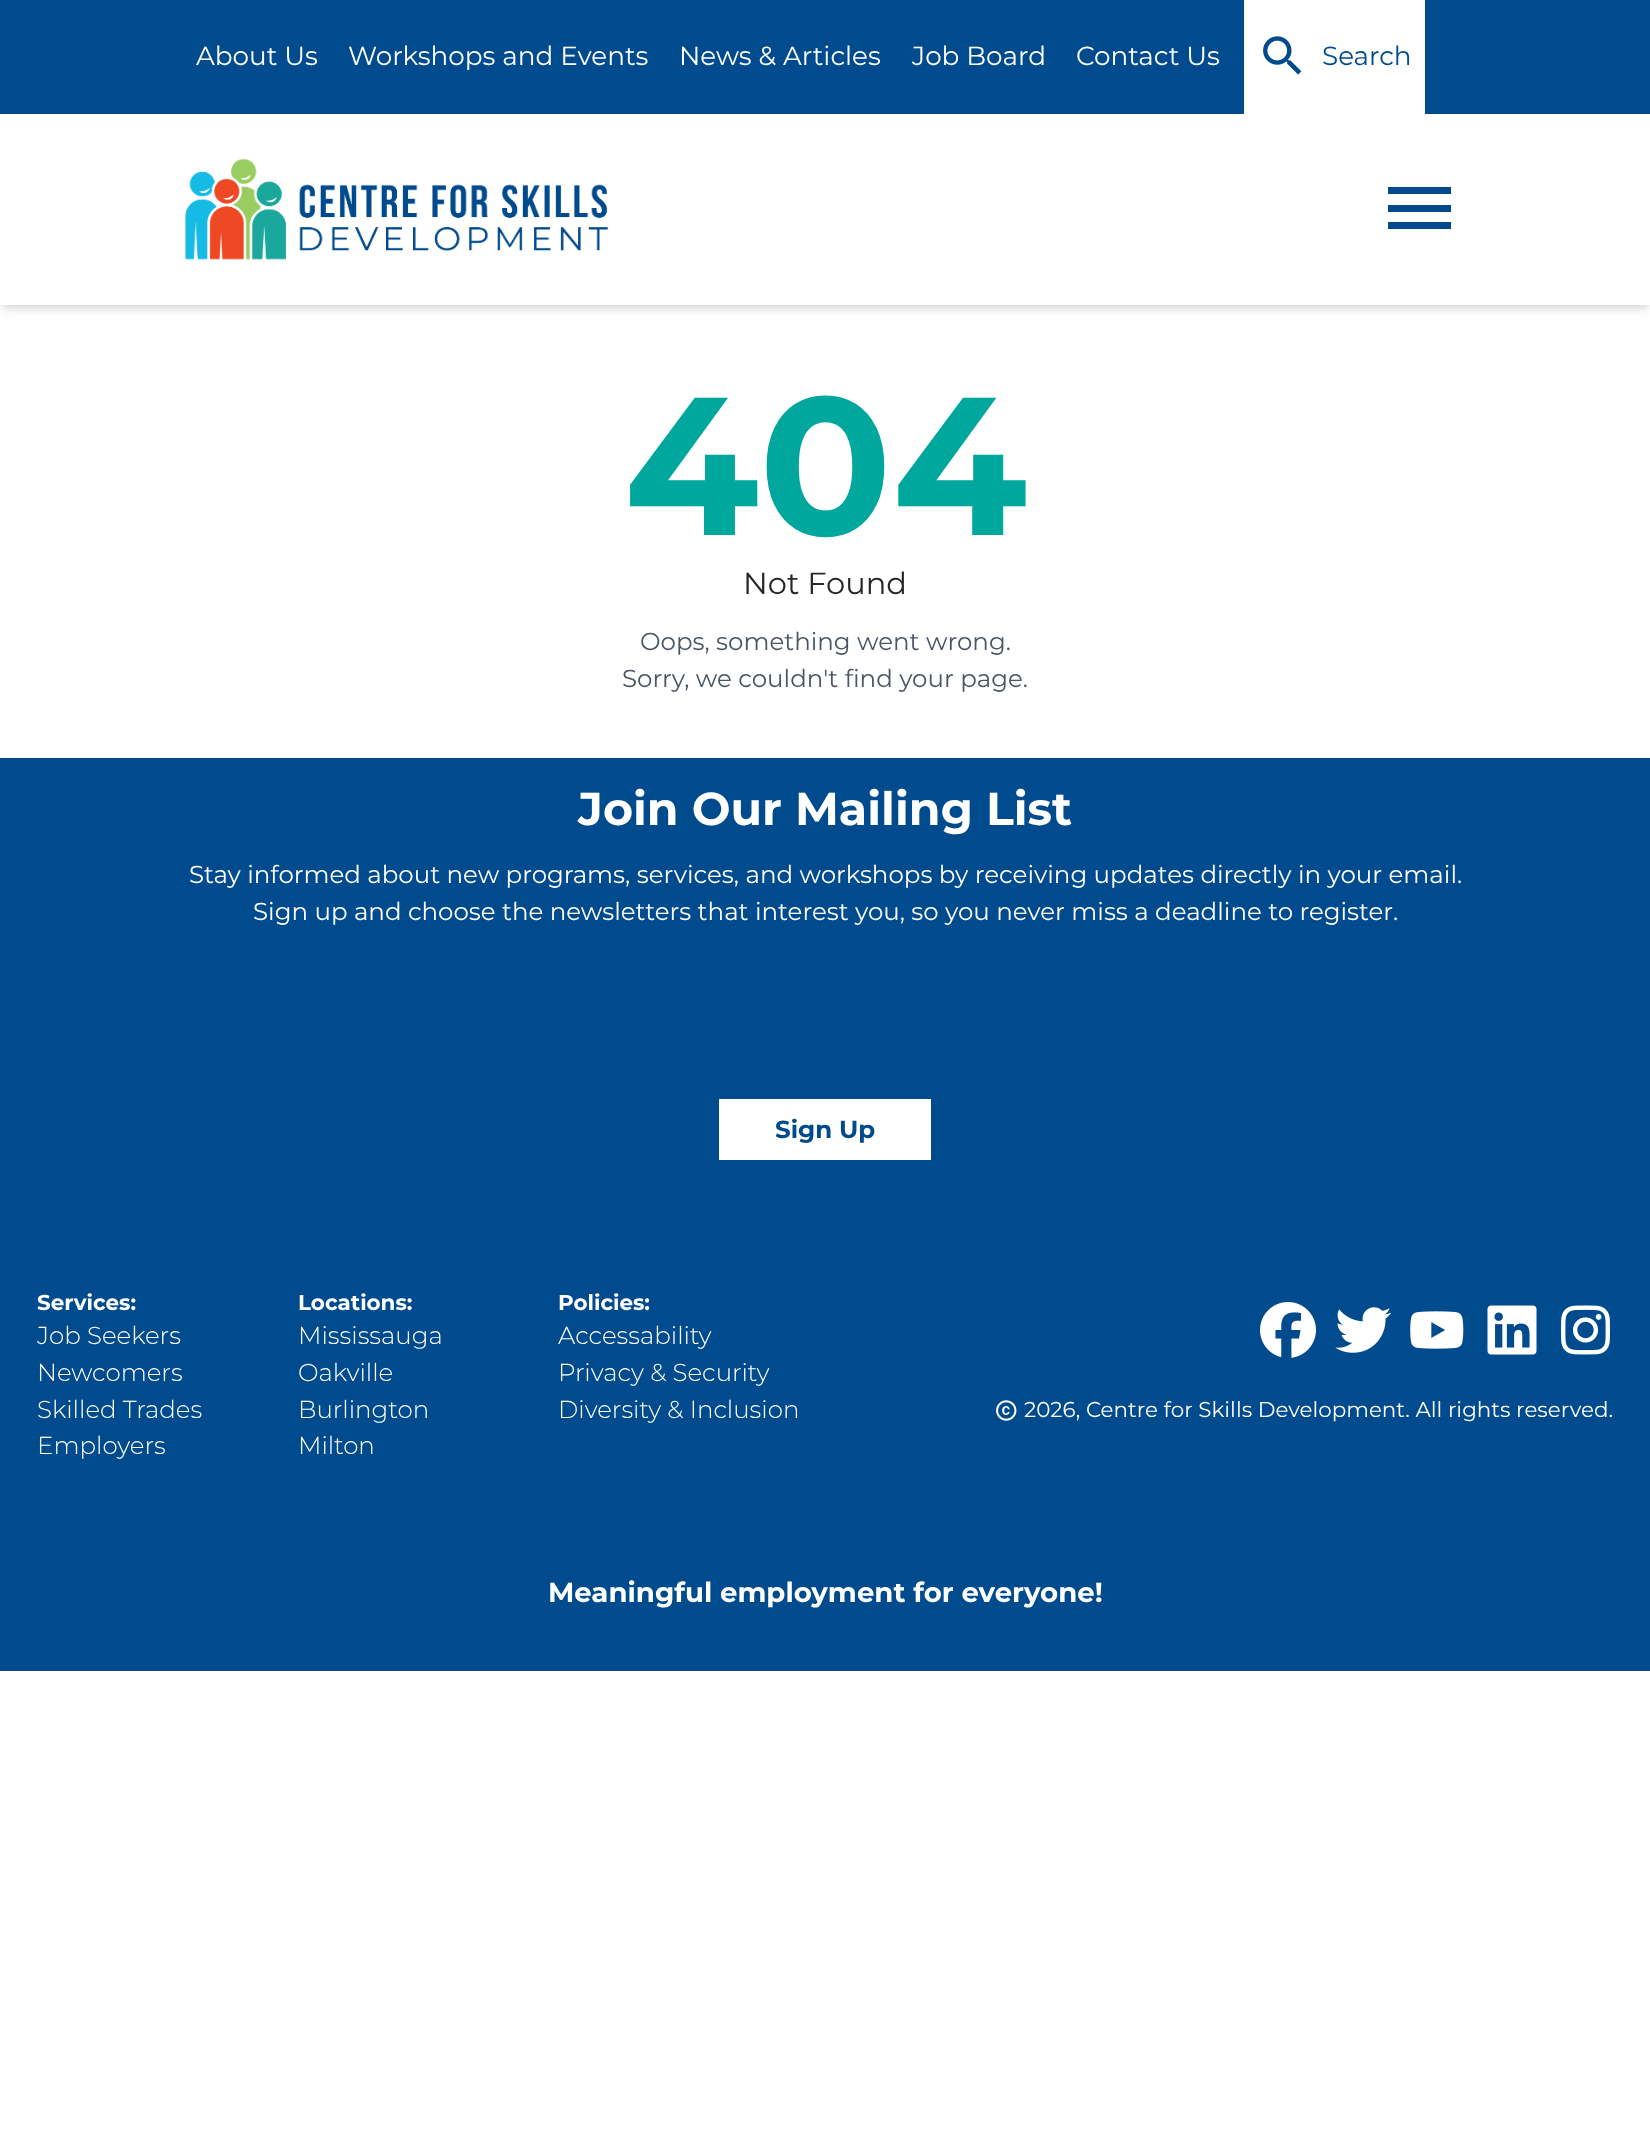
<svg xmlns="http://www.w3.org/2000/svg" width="1650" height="2133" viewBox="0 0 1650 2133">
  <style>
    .t1 { font: 26.25px Montserrat; fill: #fff; }
    .t2 { font: 26.25px Montserrat; fill: #004b8d; }
    .t3 { font: bold 196px Montserrat; fill: #00a79c; }
    .t4 { font: 30.5px Montserrat; fill: #27272a; }
    .t5 { font: 24.5px Montserrat; fill: #4b5563; }
    .t6 { font: bold 46px Montserrat; fill: #fff; }
    .t7 { font: 24.5px Montserrat; fill: #fff; }
    .t8 { font: bold 24.5px Montserrat; fill: #004b8d; }
    .t9 { font: bold 21.45px Montserrat; fill: #fff; }
    .t10 { font: 300 24.5px Montserrat; fill: #fff; }
    .t11 { font: 21.45px Montserrat; fill: #fff; }
    .t12 { font: bold 27.6px Montserrat; fill: #fff; }
  </style>
  <defs>
    <clipPath id="clip1"><path d="M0 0H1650V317H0ZM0 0H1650V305H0Z" clip-rule="evenodd"/></clipPath>
    <clipPath id="clip2"><path d="M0 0H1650V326H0ZM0 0H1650V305H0Z" clip-rule="evenodd"/></clipPath>
  </defs>
  <rect width="100%" height="100%" fill="#fff"/>
  <g clip-path="url(#clip1)">
    <rect x="4" y="7" width="1643" height="298" fill="#0000001a" filter="blur(3.5px)"/>
  </g>
  <g clip-path="url(#clip2)">
    <rect x="2" y="9" width="1647" height="301" fill="#0000001a" filter="blur(5px)"/>
  </g>
  <rect x="0" y="0" width="1650" height="114" fill="#004b8d"/>
  <text x="196" y="65" class="t1">About Us</text>
  <text x="348" y="65" class="t1">Workshops and Events</text>
  <text x="679" y="65" class="t1">News &amp; Articles</text>
  <text x="912" y="65" class="t1">Job Board</text>
  <text x="1076" y="65" class="t1">Contact Us</text>
  <rect x="1244" y="0" width="181" height="114" fill="#fff"/>
  <image x="1263" y="36" width="39" height="39" href="images/1.png"/>
  <text x="1322" y="65" class="t2">Search</text>
  <image x="185" y="158" width="424" height="102" href="images/2.png"/>
  <path d="M1388 229H1451V222H1388ZM1388 212H1451V205H1388ZM1388 187V194H1451V187Z" fill="#004b8d"/>
  <text x="624" y="535" class="t3">404</text>
  <text x="743" y="594" class="t4">Not Found</text>
  <text x="640" y="650" class="t5">Oops, something went wrong.</text>
  <text x="622" y="687" class="t5">Sorry, we couldn't find your page.</text>
  <rect x="0" y="758" width="1650" height="913" fill="#004b8d"/>
  <text x="578" y="825" class="t6">Join Our Mailing List</text>
  <text x="189" y="883" class="t7">Stay informed about new programs, services, and workshops by receiving updates directly in your email.</text>
  <text x="253" y="920" class="t7">Sign up and choose the newsletters that interest you, so you never miss a deadline to register.</text>
  <rect x="719" y="1099" width="212" height="61" fill="#fff"/>
  <text x="775" y="1138" class="t8">Sign Up</text>
  <text x="37" y="1310" class="t9">Services:</text>
  <text x="37" y="1344" class="t10">Job Seekers</text>
  <text x="37" y="1381" class="t10">Newcomers</text>
  <text x="37" y="1418" class="t10">Skilled Trades</text>
  <text x="37" y="1454" class="t10">Employers</text>
  <text x="298" y="1310" class="t9">Locations:</text>
  <text x="298" y="1344" class="t10">Mississauga</text>
  <text x="298" y="1381" class="t10">Oakville</text>
  <text x="298" y="1418" class="t10">Burlington</text>
  <text x="298" y="1454" class="t10">Milton</text>
  <text x="558" y="1310" class="t9">Policies:</text>
  <text x="558" y="1344" class="t10">Accessability</text>
  <text x="558" y="1381" class="t10">Privacy &amp; Security</text>
  <text x="558" y="1418" class="t10">Diversity &amp; Inclusion</text>
  <image x="1260" y="1302" width="56" height="56" href="images/3.png"/>
  <image x="1335" y="1307" width="56" height="46" href="images/4.png"/>
  <image x="1410" y="1311" width="54" height="38" href="images/5.png"/>
  <image x="1487" y="1305" width="50" height="50" href="images/6.png"/>
  <image x="1561" y="1305" width="49" height="50" href="images/7.png"/>
  <image x="996" y="1400" width="21" height="21" href="images/8.png"/>
  <text x="1024" y="1417" class="t11">2026, Centre for Skills Development. All rights reserved.</text>
  <text x="548" y="1602" class="t12">Meaningful employment for everyone!</text>
</svg>
